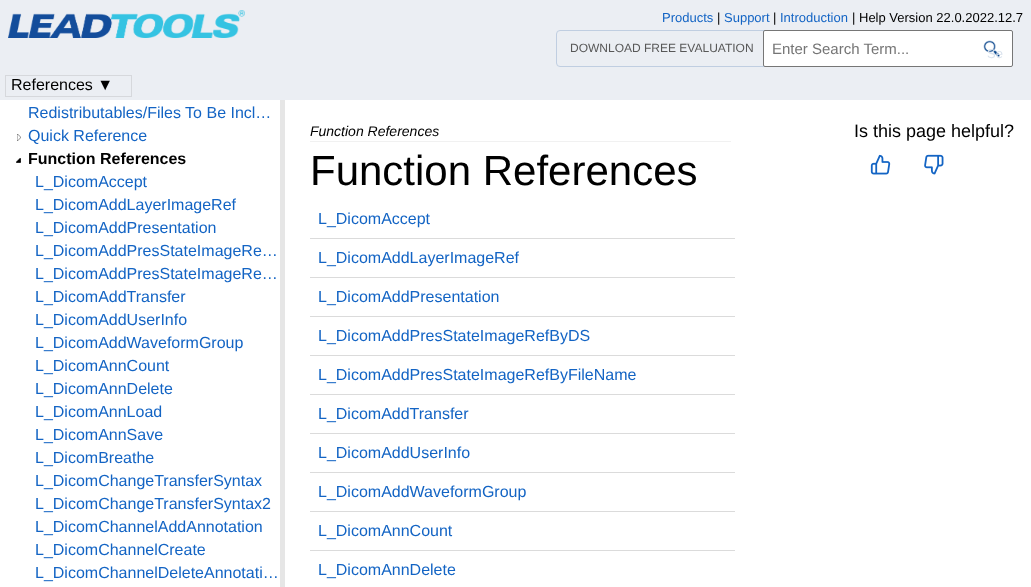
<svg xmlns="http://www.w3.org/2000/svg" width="1031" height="587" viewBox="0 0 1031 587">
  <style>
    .t1 { font: 13px Liberation Sans; fill: #1364c4; }
    .t2 { font: 13px Liberation Sans; fill: #000; }
    .t3 { font: 12px Liberation Sans; fill: #585858; }
    .t4 { font: 15px Liberation Sans; fill: #757575; }
    .t5 { font: 13px Liberation Sans; fill: #d9e2ed; }
    .t6 { font: 16px Liberation Sans; fill: #000; }
    .t7 { font: 16px Liberation Sans; fill: #1364c4; }
    .t8 { font: bold 16px Liberation Sans; fill: #000; }
    .t9 { font: italic 14px Liberation Sans; fill: #000; }
    .t10 { font: 18px Liberation Sans; fill: #000; }
    .t11 { font: 42px Liberation Sans; fill: #000; }
  </style>
  <rect width="100%" height="100%" fill="#fff"/>
  <rect x="0" y="0" width="1031" height="100" fill="#ebeef3"/>
  <image x="8" y="10" width="237" height="28" href="images/1.png"/>
  <text x="662" y="22" class="t1">Products</text>
  <text x="717" y="22" class="t2">|</text>
  <text x="724" y="22" class="t1">Support</text>
  <text x="773" y="22" class="t2">|</text>
  <text x="780" y="22" class="t1">Introduction</text>
  <text x="852" y="22" class="t2">| Help Version 22.0.2022.12.7</text>
  <rect x="556.5" y="30.5" width="211" height="36" rx="3.5" fill="none" stroke="#c0cee1"/>
  <text x="570" y="52" class="t3">DOWNLOAD FREE EVALUATION</text>
  <rect x="763.5" y="30.5" width="249" height="36" rx="1.5" fill="#fff" stroke="#767676"/>
  <text x="772" y="54" class="t4">Enter Search Term...</text>
  <image x="983" y="40" width="17" height="17" href="images/2.png"/>
  <text x="987" y="58" class="t5">Se</text>
  <rect x="5.5" y="75.5" width="126" height="21" fill="none" stroke="#d6d8dc"/>
  <text x="11" y="90" class="t6">References ▼</text>
  <rect x="280" y="100" width="5" height="487" fill="#e6e6e6"/>
  <text x="28" y="118" class="t7">Redistributables/Files To Be Incl…</text>
  <image x="17" y="134" width="4" height="7" href="images/3.png"/>
  <text x="28" y="141" class="t7">Quick Reference</text>
  <image x="16" y="158" width="5" height="5" href="images/4.png"/>
  <text x="28" y="164" class="t8">Function References</text>
  <text x="35" y="187" class="t7">L_DicomAccept</text>
  <text x="35" y="210" class="t7">L_DicomAddLayerImageRef</text>
  <text x="35" y="233" class="t7">L_DicomAddPresentation</text>
  <text x="35" y="256" class="t7">L_DicomAddPresStateImageRe…</text>
  <text x="35" y="279" class="t7">L_DicomAddPresStateImageRe…</text>
  <text x="35" y="302" class="t7">L_DicomAddTransfer</text>
  <text x="35" y="325" class="t7">L_DicomAddUserInfo</text>
  <text x="35" y="348" class="t7">L_DicomAddWaveformGroup</text>
  <text x="35" y="371" class="t7">L_DicomAnnCount</text>
  <text x="35" y="394" class="t7">L_DicomAnnDelete</text>
  <text x="35" y="417" class="t7">L_DicomAnnLoad</text>
  <text x="35" y="440" class="t7">L_DicomAnnSave</text>
  <text x="35" y="463" class="t7">L_DicomBreathe</text>
  <text x="35" y="486" class="t7">L_DicomChangeTransferSyntax</text>
  <text x="35" y="509" class="t7">L_DicomChangeTransferSyntax2</text>
  <text x="35" y="532" class="t7">L_DicomChannelAddAnnotation</text>
  <text x="35" y="555" class="t7">L_DicomChannelCreate</text>
  <text x="35" y="578" class="t7">L_DicomChannelDeleteAnnotati…</text>
  <rect x="310" y="141" width="421" height="1" fill="#f1f1f1"/>
  <text x="310" y="136" class="t9">Function References</text>
  <text x="854" y="137" class="t10">Is this page helpful?</text>
  <image x="870" y="154" width="21" height="21" href="images/5.png"/>
  <image x="924" y="154" width="20" height="21" href="images/6.png"/>
  <text x="310" y="185" class="t11">Function References</text>
  <rect x="310" y="238" width="425" height="1" fill="#dbdbdb"/>
  <text x="318" y="224" class="t7">L_DicomAccept</text>
  <rect x="310" y="277" width="425" height="1" fill="#dbdbdb"/>
  <text x="318" y="263" class="t7">L_DicomAddLayerImageRef</text>
  <rect x="310" y="316" width="425" height="1" fill="#dbdbdb"/>
  <text x="318" y="302" class="t7">L_DicomAddPresentation</text>
  <rect x="310" y="355" width="425" height="1" fill="#dbdbdb"/>
  <text x="318" y="341" class="t7">L_DicomAddPresStateImageRefByDS</text>
  <rect x="310" y="394" width="425" height="1" fill="#dbdbdb"/>
  <text x="318" y="380" class="t7">L_DicomAddPresStateImageRefByFileName</text>
  <rect x="310" y="433" width="425" height="1" fill="#dbdbdb"/>
  <text x="318" y="419" class="t7">L_DicomAddTransfer</text>
  <rect x="310" y="472" width="425" height="1" fill="#dbdbdb"/>
  <text x="318" y="458" class="t7">L_DicomAddUserInfo</text>
  <rect x="310" y="511" width="425" height="1" fill="#dbdbdb"/>
  <text x="318" y="497" class="t7">L_DicomAddWaveformGroup</text>
  <rect x="310" y="550" width="425" height="1" fill="#dbdbdb"/>
  <text x="318" y="536" class="t7">L_DicomAnnCount</text>
  <text x="318" y="575" class="t7">L_DicomAnnDelete</text>
</svg>
